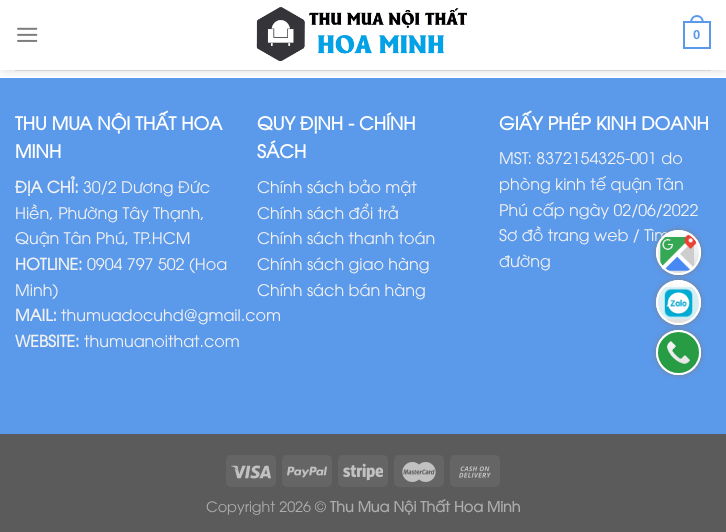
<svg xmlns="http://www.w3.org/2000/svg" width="726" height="532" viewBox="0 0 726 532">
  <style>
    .t1 { font: bold 13px Liberation Sans; fill: #5b99ea; }
    .t2 { font: bold 18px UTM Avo; fill: #fff; }
    .t3 { font: bold 16px UTM Avo; fill: #f1f1f1; }
    .t4 { font: 16px UTM Avo; fill: #f1f1f1; }
    .t5 { font: 14.4px UTM Avo; fill: #adadad; }
    .t6 { font: bold 14.4px UTM Avo; fill: #adadad; }
  </style>
  <defs>
    <clipPath id="clip1"><rect x="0" y="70" width="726" height="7"/></clipPath>
    <linearGradient id="g1" gradientUnits="userSpaceOnUse" x1="679" y1="325" x2="679" y2="280"><stop offset="0" stop-color="#ddd"/><stop offset="1" stop-color="#fff"/></linearGradient>
    <linearGradient id="g2" gradientUnits="userSpaceOnUse" x1="679" y1="275" x2="679" y2="230"><stop offset="0" stop-color="#ddd"/><stop offset="1" stop-color="#fff"/></linearGradient>
    <linearGradient id="g3" gradientUnits="userSpaceOnUse" x1="679" y1="375" x2="679" y2="330"><stop offset="0" stop-color="#ddd"/><stop offset="1" stop-color="#fff"/></linearGradient>
  </defs>
  <rect width="100%" height="100%" fill="#fff"/>
  <rect x="0" y="78" width="726" height="356" fill="#5b99ea"/>
  <g clip-path="url(#clip1)">
    <rect x="1" y="1" width="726" height="70" fill="#00000026" filter="blur(5px)"/>
  </g>
  <image x="17" y="27" width="21" height="15" href="images/1.png"/>
  <image x="256" y="7" width="212" height="55" href="images/2.png"/>
  <rect x="684" y="22" width="26" height="26" fill="none" stroke="#5b99ea" stroke-width="2"/>
  <path d="M697 15C701.5 15 704 19 704 23H690C690 19 692.5 15 697 15ZM697 17C700.5 17 702 20 702 23H692C692 20 693.5 17 697 17Z" fill="#5b99ea" fill-rule="evenodd"/>
  <text x="693" y="39" class="t1">0</text>
  <rect x="15" y="70" width="696" height="1" fill="#d3d3d3"/>
  <text x="15" y="130" class="t2">THU MUA NỘI THẤT HOA</text>
  <text x="15" y="158" class="t2">MINH</text>
  <text x="15" y="193" class="t3">ĐỊA CHỈ:</text>
  <text x="83" y="193" class="t4">30/2 Dương Đức</text>
  <text x="15" y="219" class="t4">Hiền, Phường Tây Thạnh,</text>
  <text x="15" y="244" class="t4">Quận Tân Phú, TP.HCM</text>
  <text x="15" y="270" class="t3">HOTLINE:</text>
  <text x="87" y="270" class="t4">0904 797 502 (Hoa</text>
  <text x="15" y="296" class="t4">Minh)</text>
  <text x="15" y="321" class="t3">MAIL:</text>
  <text x="61" y="321" class="t4">thumuadocuhd@gmail.com</text>
  <text x="15" y="347" class="t3">WEBSITE:</text>
  <text x="84" y="347" class="t4">thumuanoithat.com</text>
  <text x="257" y="130" class="t2">QUY ĐỊNH - CHÍNH</text>
  <text x="257" y="158" class="t2">SÁCH</text>
  <text x="257" y="193" class="t4">Chính sách bảo mật</text>
  <text x="257" y="219" class="t4">Chính sách đổi trả</text>
  <text x="257" y="244" class="t4">Chính sách thanh toán</text>
  <text x="257" y="270" class="t4">Chính sách giao hàng</text>
  <text x="257" y="296" class="t4">Chính sách bán hàng</text>
  <text x="499" y="130" class="t2">GIẤY PHÉP KINH DOANH</text>
  <text x="499" y="164" class="t4">MST: 8372154325-001 do</text>
  <text x="499" y="190" class="t4">phòng kinh tế quận Tân</text>
  <text x="499" y="216" class="t4">Phú cấp ngày 02/06/2022</text>
  <text x="499" y="241" class="t4">Sơ đồ trang web / Tìm</text>
  <text x="499" y="267" class="t4">đường</text>
  <rect x="0" y="434" width="726" height="98" fill="#5b5b5b"/>
  <rect x="226" y="455" width="50" height="32" rx="5" fill="#656565"/>
  <image x="231" y="465" width="40" height="14" href="images/3.png"/>
  <rect x="282" y="455" width="50" height="32" rx="5" fill="#656565"/>
  <image x="287" y="466" width="40" height="12" href="images/4.png"/>
  <rect x="338" y="455" width="50" height="32" rx="5" fill="#656565"/>
  <image x="343" y="463" width="40" height="18" href="images/5.png"/>
  <rect x="394" y="455" width="50" height="32" rx="5" fill="#656565"/>
  <image x="402" y="462" width="34" height="20" href="images/6.png"/>
  <rect x="450" y="455" width="50" height="32" rx="5" fill="#656565"/>
  <image x="459" y="466" width="32" height="12" href="images/7.png"/>
  <text x="206" y="512" class="t5">Copyright 2026 ©</text>
  <text x="330" y="512" class="t6">Thu Mua Nội Thất Hoa Minh</text>
  <rect x="656" y="280" width="45" height="45" rx="22.5" fill="#808080" filter="blur(2.5px)"/>
  <circle cx="678.5" cy="302.5" r="22.5" fill="url(#g1)"/>
  <image x="657" y="287" width="43" height="32" href="images/9.png"/>
  <circle cx="678.5" cy="302.5" r="21.5" fill="none" stroke="#fff" stroke-width="2"/>
  <rect x="656" y="230" width="45" height="45" rx="22.5" fill="#808080" filter="blur(2.5px)"/>
  <circle cx="678.5" cy="252.5" r="22.5" fill="url(#g2)"/>
  <image x="660" y="234" width="37" height="37" href="images/8.png"/>
  <circle cx="678.5" cy="252.5" r="21.5" fill="none" stroke="#fff" stroke-width="2"/>
  <rect x="656" y="330" width="45" height="45" rx="22.5" fill="#808080" filter="blur(2.5px)"/>
  <circle cx="678.5" cy="352.5" r="22.5" fill="url(#g3)"/>
  <image x="657" y="331" width="43" height="43" href="images/10.png"/>
  <circle cx="678.5" cy="352.5" r="21.5" fill="none" stroke="#fff" stroke-width="2"/>
</svg>
